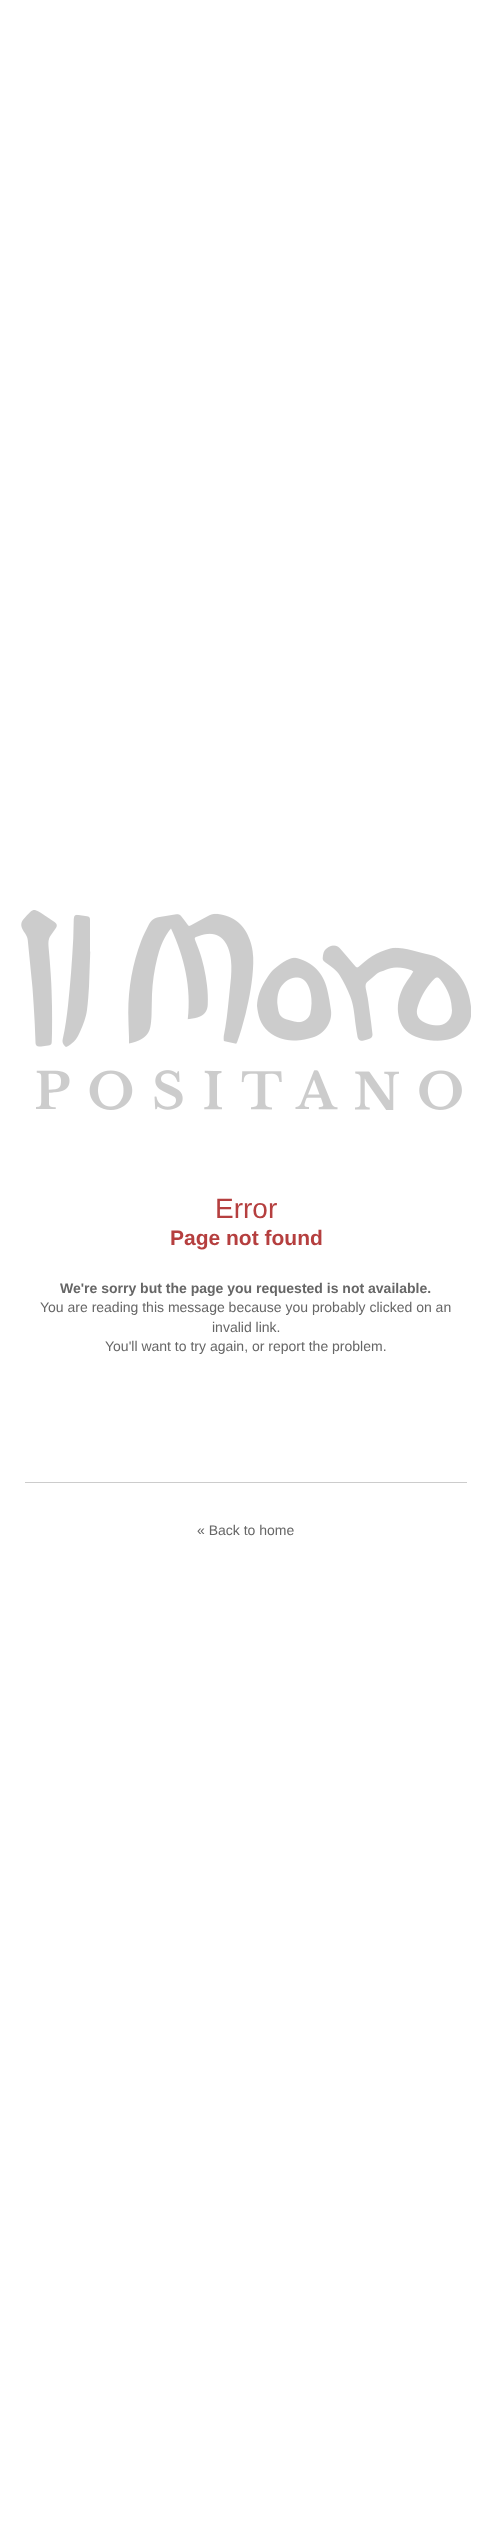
<svg xmlns="http://www.w3.org/2000/svg" width="492" height="2527" viewBox="0 0 492 2527">
  <style>
    .t1 { font: 28px Liberation Sans; fill: #b53f3f; }
    .t2 { font: bold 21px Liberation Sans; fill: #b53f3f; }
    .t3 { font: bold 14px Liberation Sans; fill: #666; }
    .t4 { font: 14px Liberation Sans; fill: #666; }
  </style>
  <rect width="100%" height="100%" fill="#fff"/>
  <image x="21" y="910" width="450" height="200" href="images/1.png"/>
  <text x="215" y="1218" class="t1">Error</text>
  <text x="170" y="1245" class="t2">Page not found</text>
  <text x="60" y="1293" class="t3">We're sorry but the page you requested is not available.</text>
  <text x="40" y="1312" class="t4">You are reading this message because you probably clicked on an</text>
  <text x="212" y="1332" class="t4">invalid link.</text>
  <text x="105" y="1351" class="t4">You'll want to try again, or report the problem.</text>
  <rect x="25" y="1482" width="442" height="1" fill="#ccc"/>
  <text x="197" y="1535" class="t4">« Back to home</text>
</svg>
